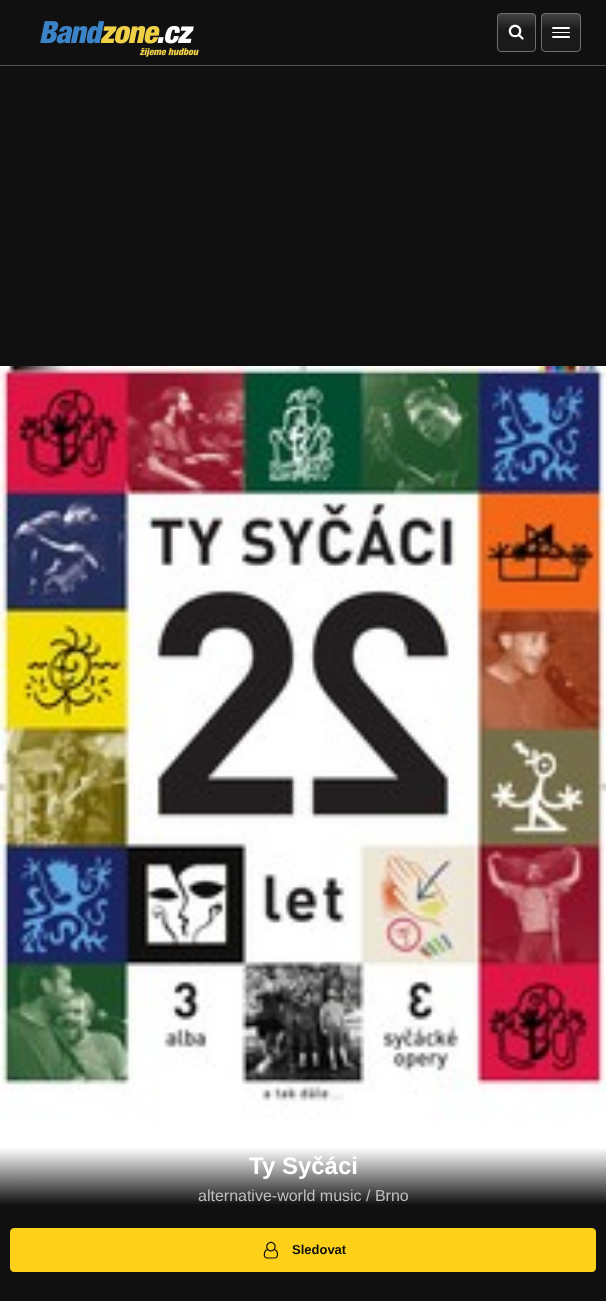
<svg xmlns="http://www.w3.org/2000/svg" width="606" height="1301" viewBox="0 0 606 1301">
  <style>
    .t1 { font: bold 24px Liberation Sans; fill: #fff; }
    .t2 { font: 16px Liberation Sans; fill: #bfbfbf; }
    .t3 { font: bold 13px Liberation Sans; fill: #101010; }
  </style>
  <defs>
    <clipPath id="clip1"><rect x="497" y="13" width="39" height="39" rx="4"/></clipPath>
    <linearGradient id="g1" gradientUnits="userSpaceOnUse" x1="517" y1="14" x2="517" y2="51"><stop offset="0" stop-color="#424242"/><stop offset="0.42" stop-color="#1a1a1a"/></linearGradient>
    <clipPath id="clip2"><rect x="541" y="13" width="40" height="39" rx="4"/></clipPath>
    <linearGradient id="g2" gradientUnits="userSpaceOnUse" x1="561" y1="14" x2="561" y2="51"><stop offset="0" stop-color="#424242"/><stop offset="0.42" stop-color="#1a1a1a"/></linearGradient>
  </defs>
  <rect width="100%" height="100%" fill="#101010"/>
  <rect x="0" y="65" width="606" height="1" fill="#515151"/>
  <image x="40" y="21" width="159" height="36" href="images/1.png"/>
  <g clip-path="url(#clip1)">
    <rect x="497" y="14" width="39" height="37" fill="url(#g1)"/>
  </g>
  <rect x="497.5" y="13.5" width="38" height="38" rx="3.5" fill="none" stroke="#6f6f6f"/>
  <image x="508" y="24" width="16" height="16" href="images/2.png"/>
  <g clip-path="url(#clip2)">
    <rect x="541" y="14" width="40" height="37" fill="url(#g2)"/>
  </g>
  <rect x="541.5" y="13.5" width="39" height="38" rx="3.5" fill="none" stroke="#6f6f6f"/>
  <rect x="552" y="27" width="18" height="2" rx="1" fill="#fff"/>
  <rect x="552" y="32" width="18" height="1" rx="0.5" fill="#fff"/>
  <rect x="552" y="36" width="18" height="2" rx="1" fill="#fff"/>
  <image x="0" y="366" width="606" height="842" href="images/3.png"/>
  <text x="249" y="1174" class="t1">Ty Syčáci</text>
  <text x="198" y="1201" class="t2">alternative-world music / Brno</text>
  <rect x="10.5" y="1228.5" width="585" height="43" rx="3.5" fill="#fdd119" stroke="#fdd119"/>
  <image x="263" y="1241" width="16" height="18" href="images/4.png"/>
  <text x="292" y="1254" class="t3">Sledovat</text>
</svg>
